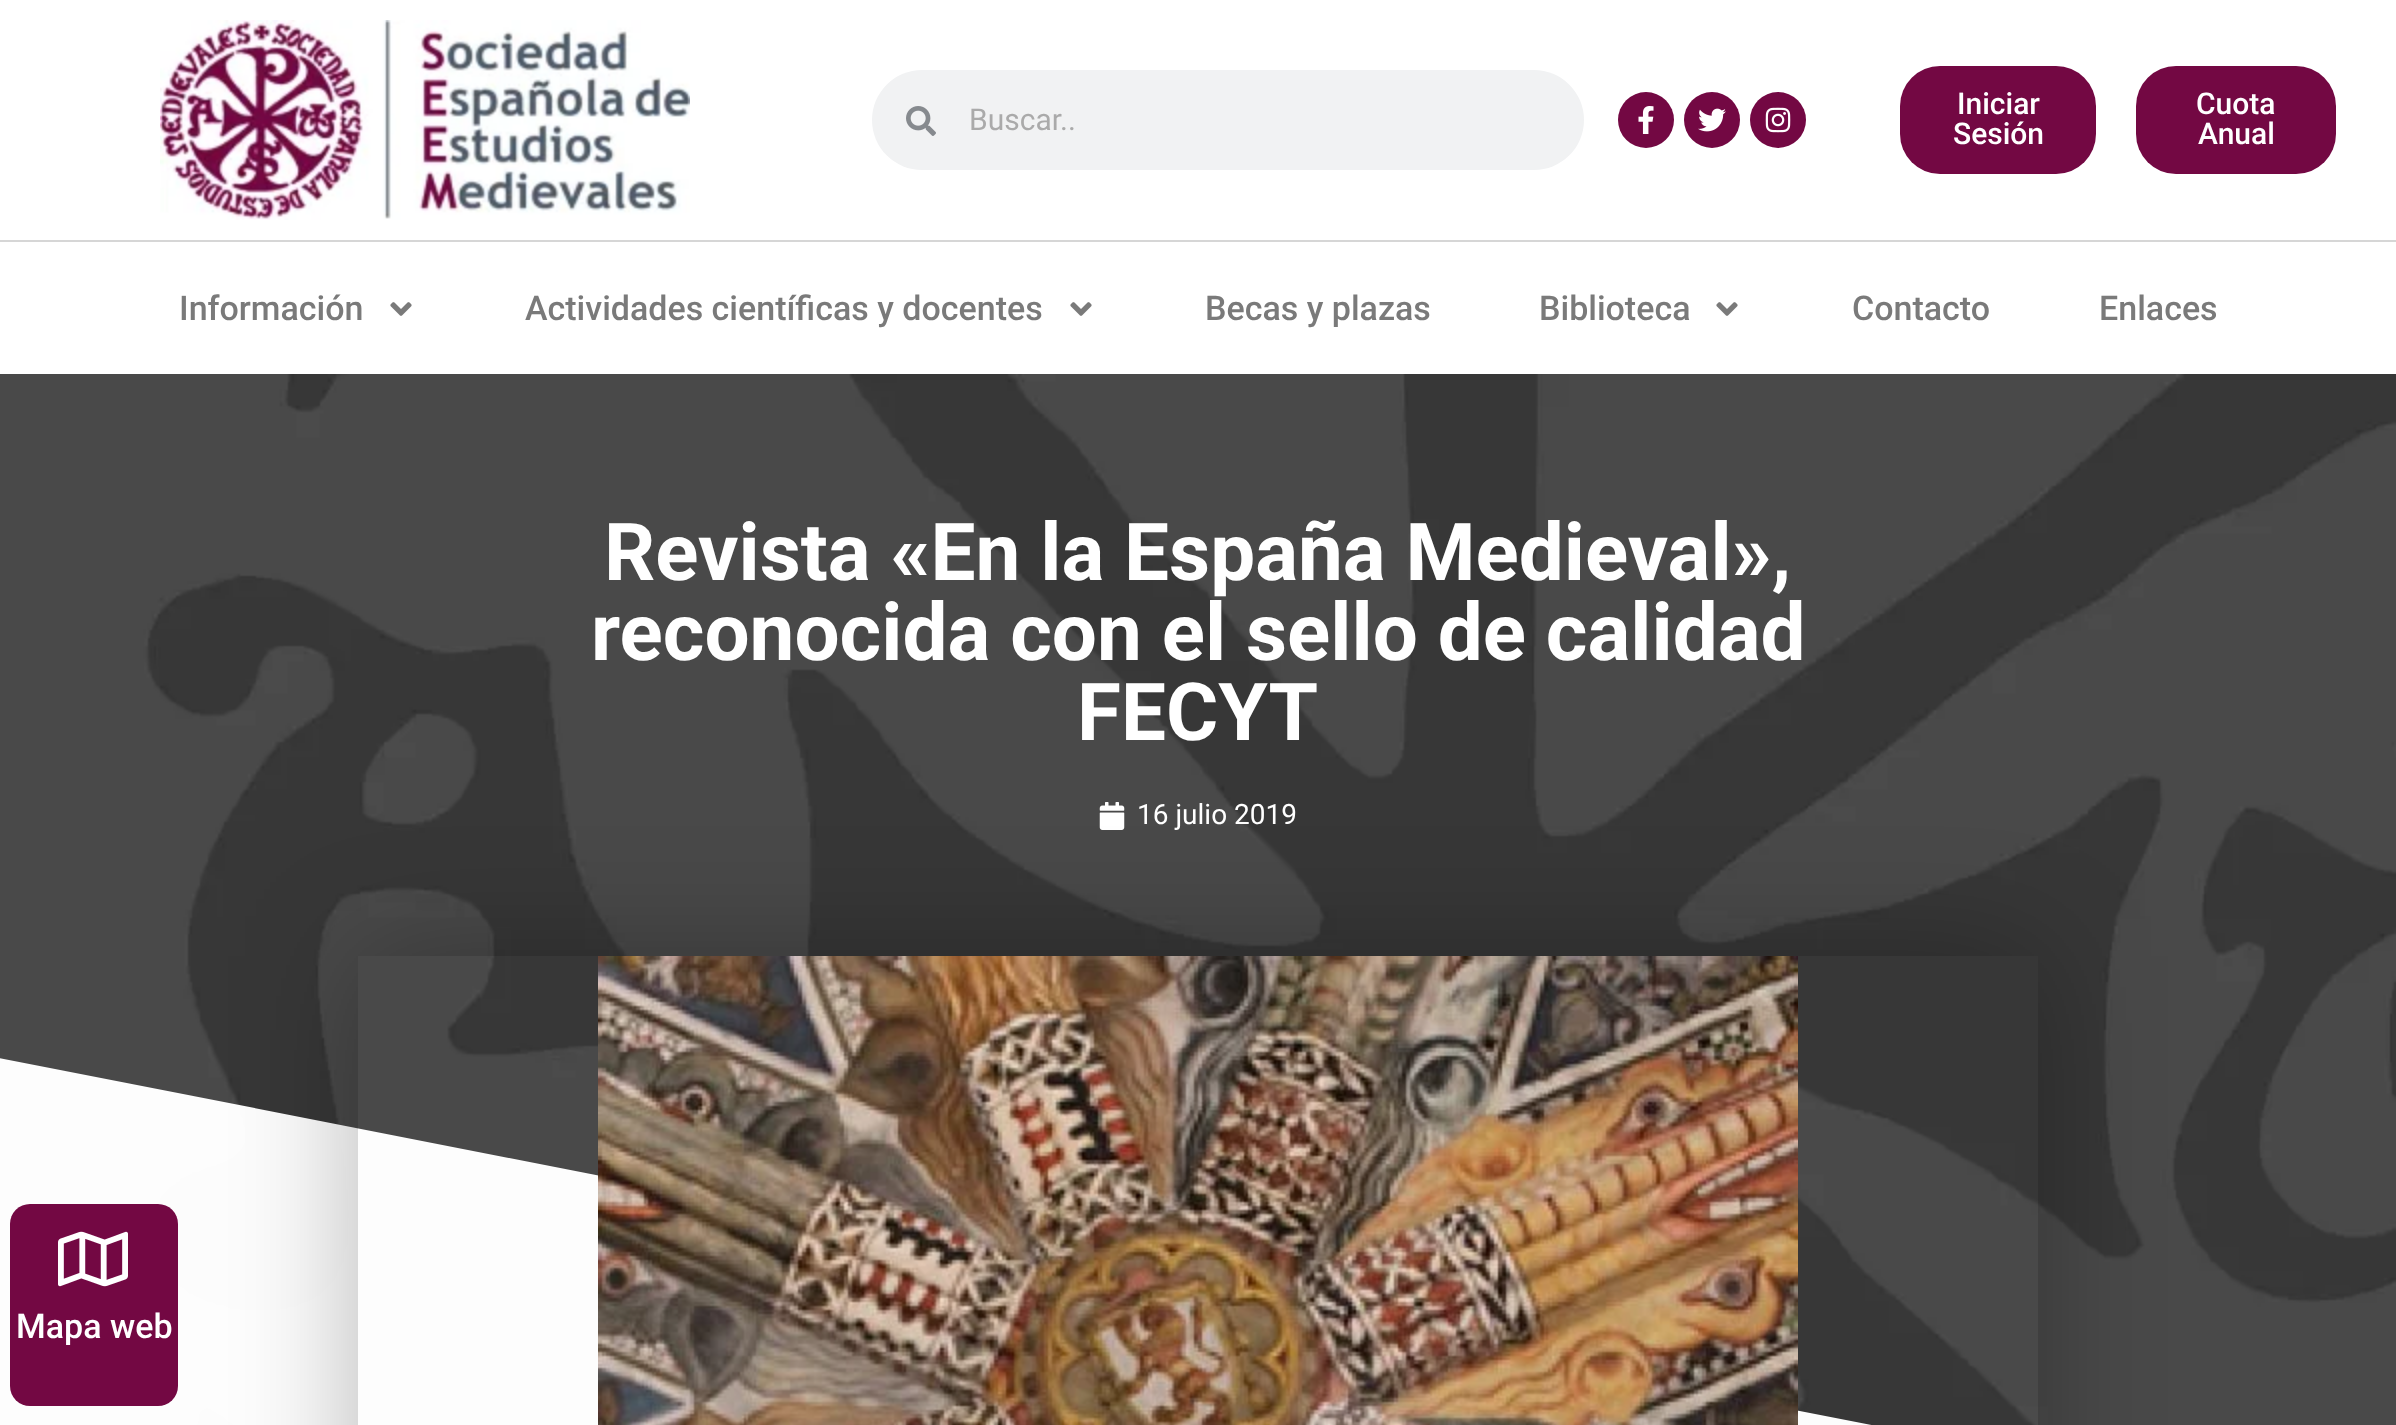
<svg xmlns="http://www.w3.org/2000/svg" width="2396" height="1425" viewBox="0 0 2396 1425">
  <style>
    .t1 { font: 30px Roboto; fill: #aaa; }
    .t2 { font: 500 30px Roboto; fill: #fff; }
    .t3 { font: 500 34px Roboto; fill: #7a7a7a; }
    .t4 { font: bold 80px Roboto; fill: #fff; }
    .t5 { font: 28px Roboto; fill: #fff; }
    .t6 { font: 500 34px Roboto; fill: #fff; }
  </style>
  <defs>
    <clipPath id="clip1"><path d="M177 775H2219V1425H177ZM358 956H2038V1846H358Z" clip-rule="evenodd"/></clipPath>
  </defs>
  <rect width="100%" height="100%" fill="#fff"/>
  <rect x="0" y="240" width="2396" height="2" fill="#d6d6d6"/>
  <image x="160" y="20" width="530" height="200" href="images/1.png"/>
  <rect x="872" y="70" width="712" height="100" rx="50" fill="#f1f2f3"/>
  <image x="906" y="106" width="30" height="30" href="images/2.png"/>
  <text x="969" y="130" class="t1">Buscar..</text>
  <circle cx="1646" cy="120" r="28" fill="#730843"/>
  <image x="1638" y="106" width="16" height="28" href="images/3.png"/>
  <circle cx="1712" cy="120" r="28" fill="#730843"/>
  <image x="1698" y="108" width="28" height="24" href="images/4.png"/>
  <circle cx="1778" cy="120" r="28" fill="#730843"/>
  <image x="1765" y="107" width="26" height="26" href="images/5.png"/>
  <rect x="1900" y="66" width="196" height="108" rx="40" fill="#730843"/>
  <text x="1957" y="114" class="t2">Iniciar</text>
  <text x="1953" y="144" class="t2">Sesión</text>
  <rect x="2136" y="66" width="200" height="108" rx="40" fill="#730843"/>
  <text x="2196" y="114" class="t2">Cuota</text>
  <text x="2198" y="144" class="t2">Anual</text>
  <text x="179" y="320" class="t3">Información</text>
  <image x="390" y="302" width="22" height="14" href="images/6.png"/>
  <text x="525" y="320" class="t3">Actividades científicas y docentes</text>
  <image x="1070" y="302" width="22" height="14" href="images/6.png"/>
  <text x="1205" y="320" class="t3">Becas y plazas</text>
  <text x="1539" y="320" class="t3">Biblioteca</text>
  <image x="1716" y="302" width="22" height="14" href="images/6.png"/>
  <text x="1852" y="320" class="t3">Contacto</text>
  <text x="2099" y="320" class="t3">Enlaces</text>
  <image x="0" y="374" width="2396" height="1051" href="images/7.png"/>
  <text x="604" y="580" class="t4">Revista «En la España Medieval»,</text>
  <text x="591" y="660" class="t4">reconocida con el sello de calidad</text>
  <text x="1077" y="740" class="t4">FECYT</text>
  <image x="1099" y="802" width="26" height="28" href="images/8.png"/>
  <text x="1137" y="824" class="t5">16 julio 2019</text>
  <path d="M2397 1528V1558H-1V1058Z" fill="#fffffffc"/>
  <g clip-path="url(#clip1)">
    <rect x="358" y="956" width="1680" height="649" fill="#00000047" filter="blur(60px)"/>
  </g>
  <image x="598" y="956" width="1200" height="469" href="images/9.png"/>
  <rect x="10" y="1204" width="168" height="202" rx="20" fill="#730843"/>
  <image x="58" y="1231" width="70" height="56" href="images/10.png"/>
  <text x="16" y="1338" class="t6">Mapa web</text>
</svg>
